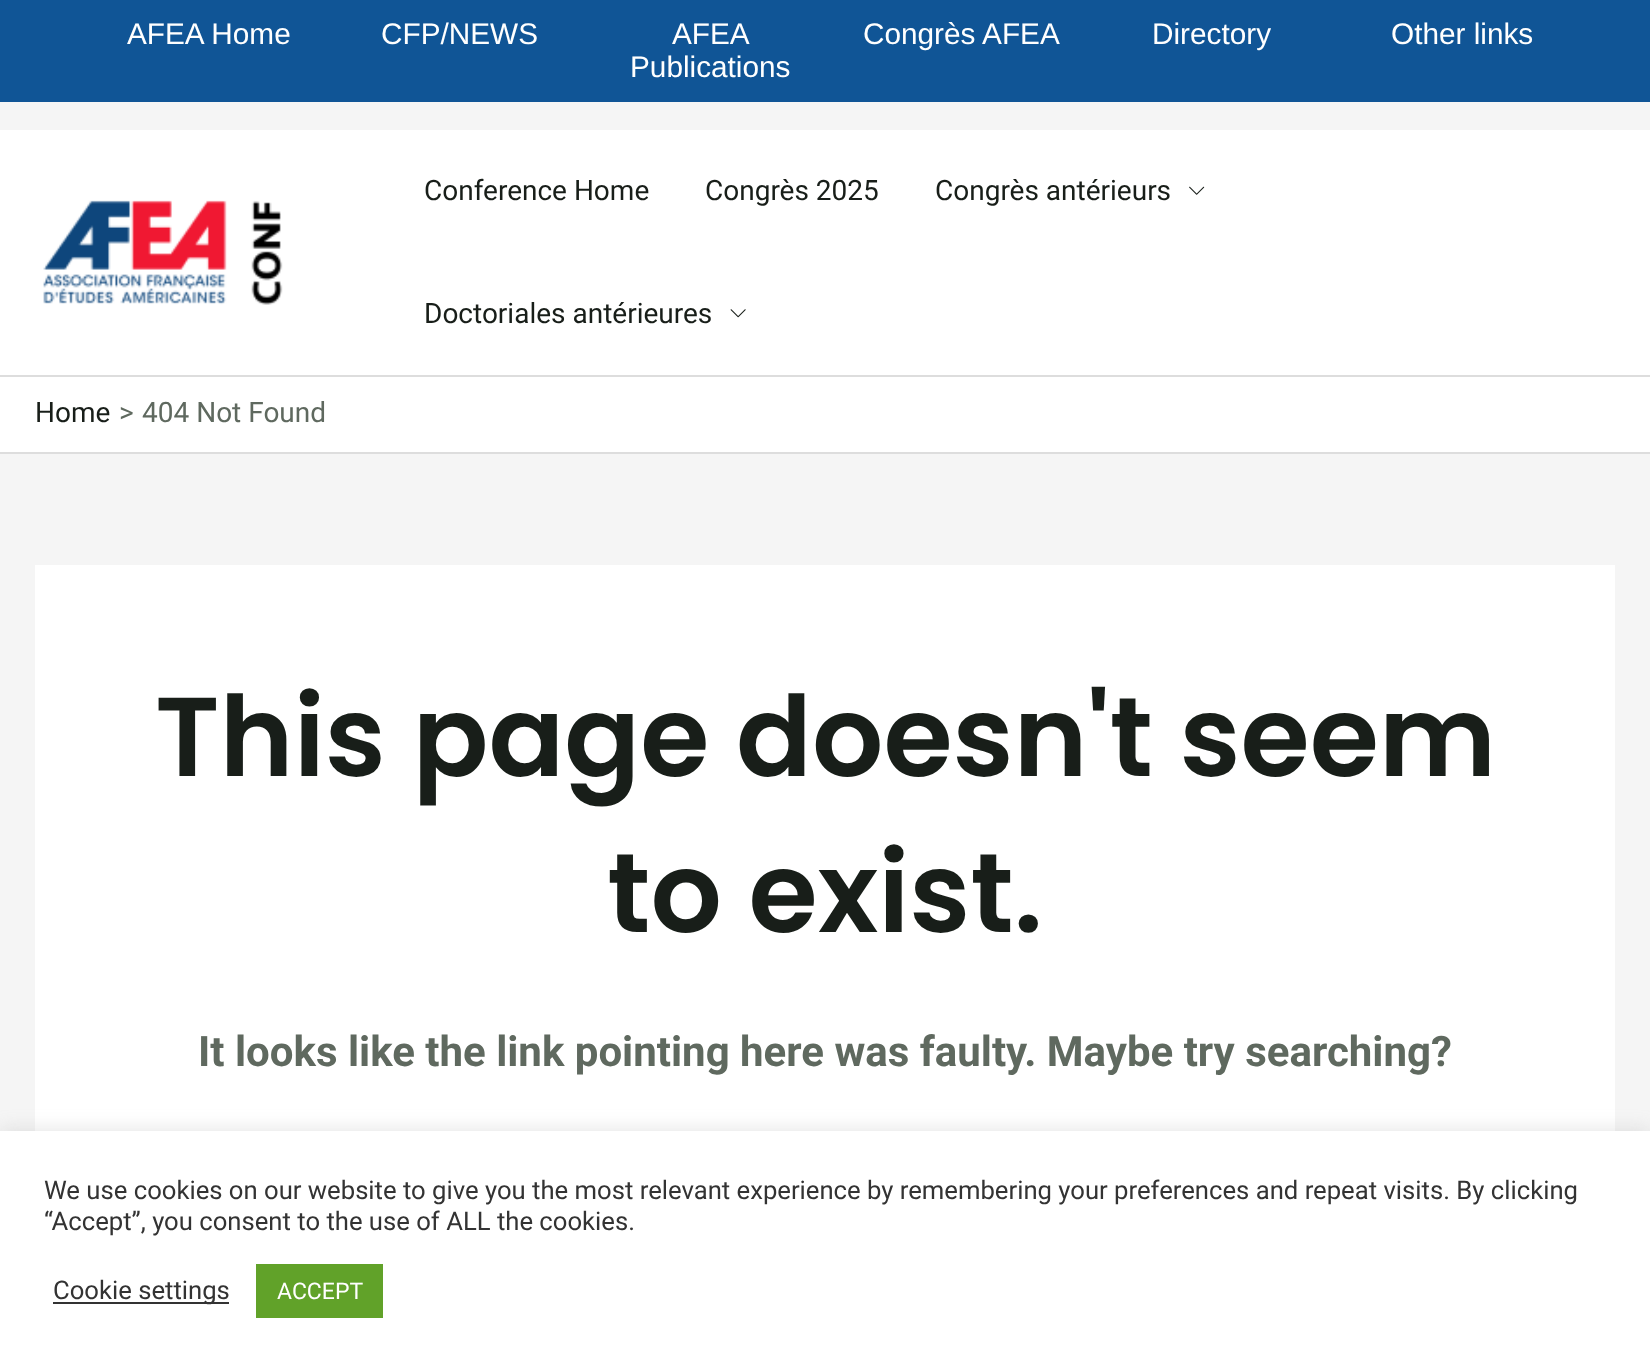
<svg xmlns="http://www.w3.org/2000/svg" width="1650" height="1369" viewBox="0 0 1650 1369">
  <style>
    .t1 { font: 29.75px Liberation Sans; fill: #fff; }
    .t2 { font: 28px Roboto; fill: #181e19; }
    .t3 { font: 28px Roboto; fill: #5f695f; }
    .t4 { font: 600 112px Poppins; fill: #181e19; }
    .t5 { font: bold 42px Roboto; fill: #5f695f; }
    .t6 { font: 25.67px Roboto; fill: #333; }
    .t7 { font: 23px Roboto; fill: #fff; }
  </style>
  <rect width="100%" height="100%" fill="#f5f5f5"/>
  <rect x="0" y="0" width="1650" height="102" fill="#105596"/>
  <text x="127" y="44" class="t1">AFEA Home</text>
  <text x="381" y="44" class="t1">CFP/NEWS</text>
  <text x="672" y="44" class="t1">AFEA</text>
  <text x="630" y="77" class="t1">Publications</text>
  <text x="863" y="44" class="t1">Congrès AFEA</text>
  <text x="1152" y="44" class="t1">Directory</text>
  <text x="1391" y="44" class="t1">Other links</text>
  <rect x="0" y="130" width="1650" height="245" fill="#fff"/>
  <rect x="0" y="375" width="1650" height="2" fill="#ddd"/>
  <image x="43" y="200" width="240" height="105" href="images/1.png"/>
  <text x="424" y="200" class="t2">Conference Home</text>
  <text x="705" y="200" class="t2">Congrès 2025</text>
  <text x="935" y="200" class="t2">Congrès antérieurs</text>
  <image x="1189" y="186" width="16" height="9" href="images/2.png"/>
  <text x="424" y="323" class="t2">Doctoriales antérieures</text>
  <image x="730" y="309" width="16" height="9" href="images/3.png"/>
  <rect x="0" y="377" width="1650" height="75" fill="#fff"/>
  <rect x="0" y="452" width="1650" height="2" fill="#ddd"/>
  <text x="35" y="422" class="t2">Home</text>
  <text x="119" y="422" class="t3">&gt;</text>
  <text x="142" y="422" class="t3">404 Not Found</text>
  <rect x="35" y="565" width="1580" height="566" fill="#fff"/>
  <text x="155" y="776" class="t4">This page doesn't seem</text>
  <text x="607" y="932" class="t4">to exist.</text>
  <text x="198" y="1066" class="t5">It looks like the link pointing here was faulty. Maybe try searching?</text>
  <rect x="0" y="1129" width="1650" height="240" fill="#acabab4d" filter="blur(9px)"/>
  <rect x="0" y="1131" width="1650" height="238" fill="#fff"/>
  <text x="44" y="1199" class="t6">We use cookies on our website to give you the most relevant experience by remembering your preferences and repeat visits. By clicking</text>
  <text x="44" y="1230" class="t6">“Accept”, you consent to the use of ALL the cookies.</text>
  <rect x="53" y="1302" width="176" height="2" fill="#333"/>
  <text x="53" y="1299" class="t6">Cookie settings</text>
  <rect x="256" y="1264" width="127" height="54" fill="#61a229"/>
  <text x="277" y="1299" class="t7">ACCEPT</text>
</svg>
